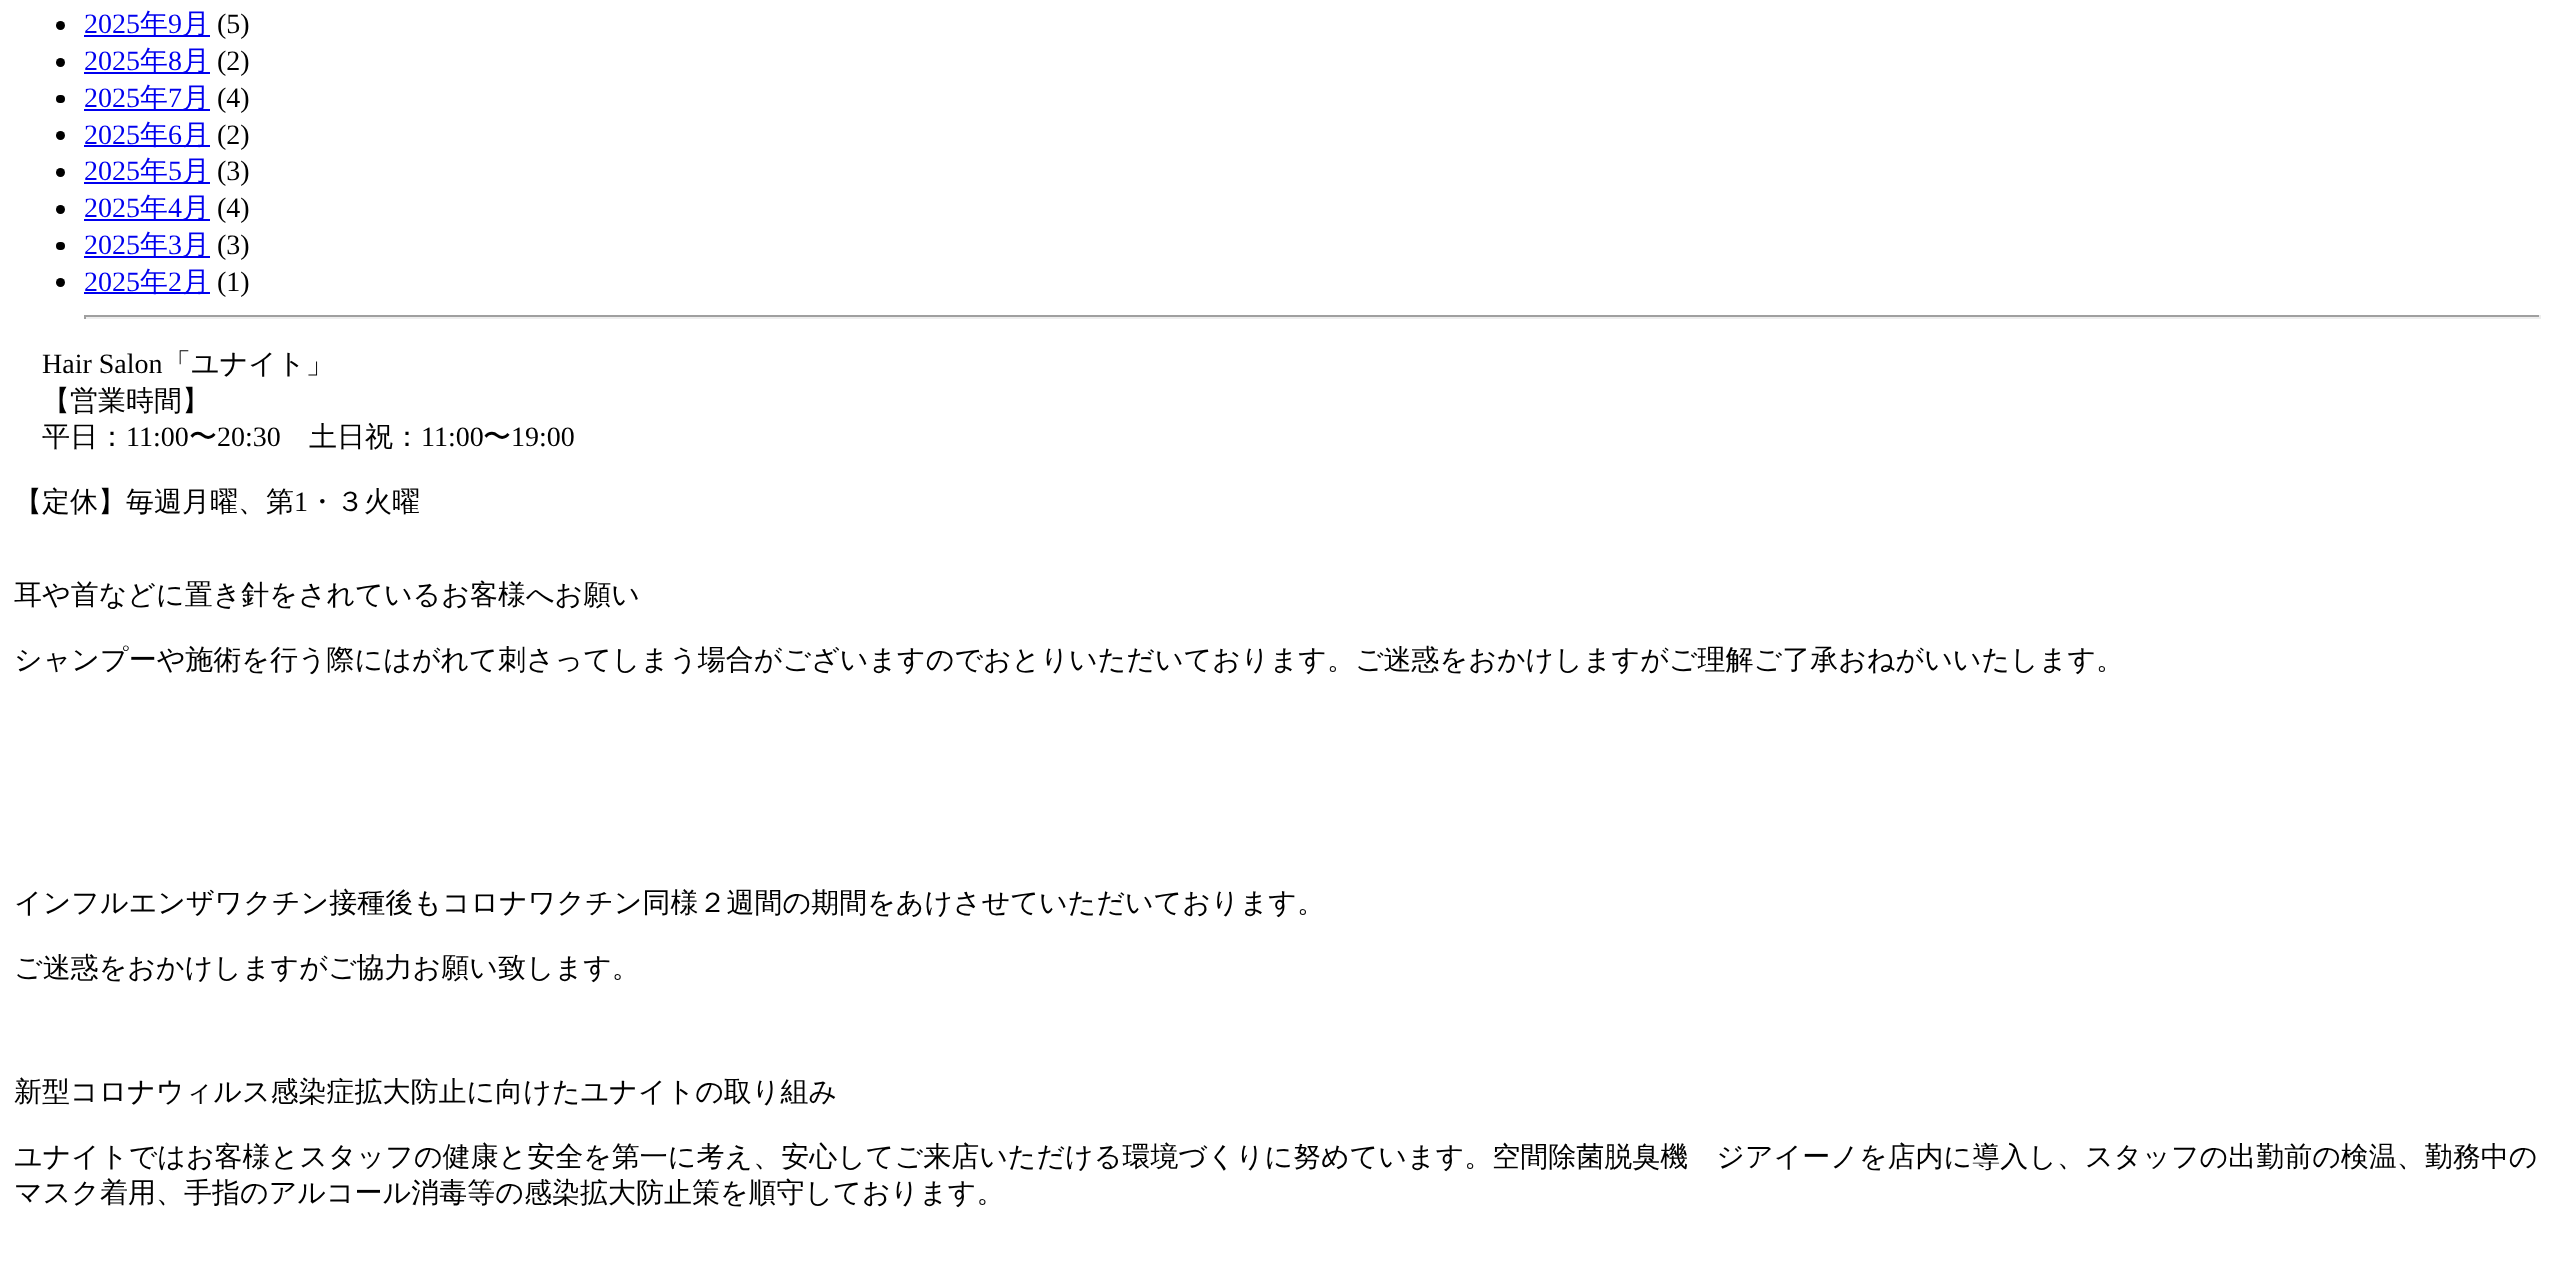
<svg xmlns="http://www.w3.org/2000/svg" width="2554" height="1269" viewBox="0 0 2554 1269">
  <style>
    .t1 { font: 28px Liberation Serif; fill: #00e; }
    .t2 { font: 500 28px WenQuanYi Zen Hei; fill: #00e; }
    .t3 { font: 28px Liberation Serif; fill: #000; }
    .t4 { font: 500 28px WenQuanYi Zen Hei; fill: #000; }
  </style>
  <rect width="100%" height="100%" fill="#fff"/>
  <circle cx="60.5" cy="25.5" r="4.5" fill="#000"/>
  <text x="84" y="33" class="t1">2025</text>
  <rect x="84" y="35" width="126" height="2" fill="#00e"/>
  <text x="140" y="33" class="t2">年</text>
  <text x="168" y="33" class="t1">9</text>
  <text x="182" y="33" class="t2">月</text>
  <text x="217" y="33" class="t3">(5)</text>
  <circle cx="60.5" cy="62.5" r="4.5" fill="#000"/>
  <text x="84" y="70" class="t1">2025</text>
  <rect x="84" y="72" width="126" height="2" fill="#00e"/>
  <text x="140" y="70" class="t2">年</text>
  <text x="168" y="70" class="t1">8</text>
  <text x="182" y="70" class="t2">月</text>
  <text x="217" y="70" class="t3">(2)</text>
  <rect x="56" y="95" width="9" height="8" rx="4" fill="#000"/>
  <text x="84" y="107" class="t1">2025</text>
  <rect x="84" y="109" width="126" height="2" fill="#00e"/>
  <text x="140" y="107" class="t2">年</text>
  <text x="168" y="107" class="t1">7</text>
  <text x="182" y="107" class="t2">月</text>
  <text x="217" y="107" class="t3">(4)</text>
  <circle cx="60.5" cy="135.5" r="4.5" fill="#000"/>
  <text x="84" y="144" class="t1">2025</text>
  <rect x="84" y="145" width="126" height="2" fill="#00e"/>
  <text x="140" y="144" class="t2">年</text>
  <text x="168" y="144" class="t1">6</text>
  <text x="182" y="144" class="t2">月</text>
  <text x="217" y="144" class="t3">(2)</text>
  <circle cx="60.5" cy="172.5" r="4.5" fill="#000"/>
  <text x="84" y="180" class="t1">2025</text>
  <rect x="84" y="182" width="126" height="2" fill="#00e"/>
  <text x="140" y="180" class="t2">年</text>
  <text x="168" y="180" class="t1">5</text>
  <text x="182" y="180" class="t2">月</text>
  <text x="217" y="180" class="t3">(3)</text>
  <circle cx="60.5" cy="209.5" r="4.5" fill="#000"/>
  <text x="84" y="217" class="t1">2025</text>
  <rect x="84" y="219" width="126" height="2" fill="#00e"/>
  <text x="140" y="217" class="t2">年</text>
  <text x="168" y="217" class="t1">4</text>
  <text x="182" y="217" class="t2">月</text>
  <text x="217" y="217" class="t3">(4)</text>
  <rect x="56" y="242" width="9" height="8" rx="4" fill="#000"/>
  <text x="84" y="254" class="t1">2025</text>
  <rect x="84" y="256" width="126" height="2" fill="#00e"/>
  <text x="140" y="254" class="t2">年</text>
  <text x="168" y="254" class="t1">3</text>
  <text x="182" y="254" class="t2">月</text>
  <text x="217" y="254" class="t3">(3)</text>
  <circle cx="60.5" cy="282.5" r="4.5" fill="#000"/>
  <text x="84" y="291" class="t1">2025</text>
  <rect x="84" y="292" width="126" height="2" fill="#00e"/>
  <text x="140" y="291" class="t2">年</text>
  <text x="168" y="291" class="t1">2</text>
  <text x="182" y="291" class="t2">月</text>
  <text x="217" y="291" class="t3">(1)</text>
  <rect x="84" y="315" width="2457" height="2" fill="#9f9f9f"/>
  <rect x="2539" y="315" width="2" height="4" fill="#eee"/>
  <rect x="84" y="317" width="2457" height="2" fill="#eee"/>
  <rect x="84" y="315" width="2" height="4" fill="#9f9f9f"/>
  <text x="42" y="373" class="t3">Hair Salon</text>
  <text x="163" y="373" class="t4">「ユナイト」</text>
  <text x="42" y="410" class="t4">【営業時間】</text>
  <text x="42" y="446" class="t4">平日：</text>
  <text x="126" y="446" class="t3">11:00</text>
  <text x="189" y="446" class="t4">〜</text>
  <text x="217" y="446" class="t3">20:30</text>
  <text x="309" y="446" class="t4">土日祝：</text>
  <text x="421" y="446" class="t3">11:00</text>
  <text x="483" y="446" class="t4">〜</text>
  <text x="511" y="446" class="t3">19:00</text>
  <text x="14" y="511" class="t4">【定休】毎週月曜、第</text>
  <text x="294" y="511" class="t3">1</text>
  <text x="308" y="511" class="t4">・３火曜</text>
  <text x="14" y="604" class="t4">耳や首などに置き針をされているお客様へお願い</text>
  <text x="14" y="669" class="t4">シャンプーや施術を行う際にはがれて刺さってしまう場合がございますのでおとりいただいております。ご迷惑をおかけしますがご理解ご了承おねがいいたします。</text>
  <text x="14" y="912" class="t4">インフルエンザワクチン接種後もコロナワクチン同様２週間の期間をあけさせていただいております。</text>
  <text x="14" y="977" class="t4">ご迷惑をおかけしますがご協力お願い致します。</text>
  <text x="14" y="1101" class="t4">新型コロナウィルス感染症拡大防止に向けたユナイトの取り組み</text>
  <text x="14" y="1166" class="t4">ユナイトではお客様とスタッフの健康と安全を第一に考え、安心してご来店いただける環境づくりに努めています。空間除菌脱臭機　ジアイーノを店内に導入し、スタッフの出勤前の検温、勤務中の</text>
  <text x="14" y="1202" class="t4">マスク着用、手指のアルコール消毒等の感染拡大防止策を順守しております。</text>
</svg>
